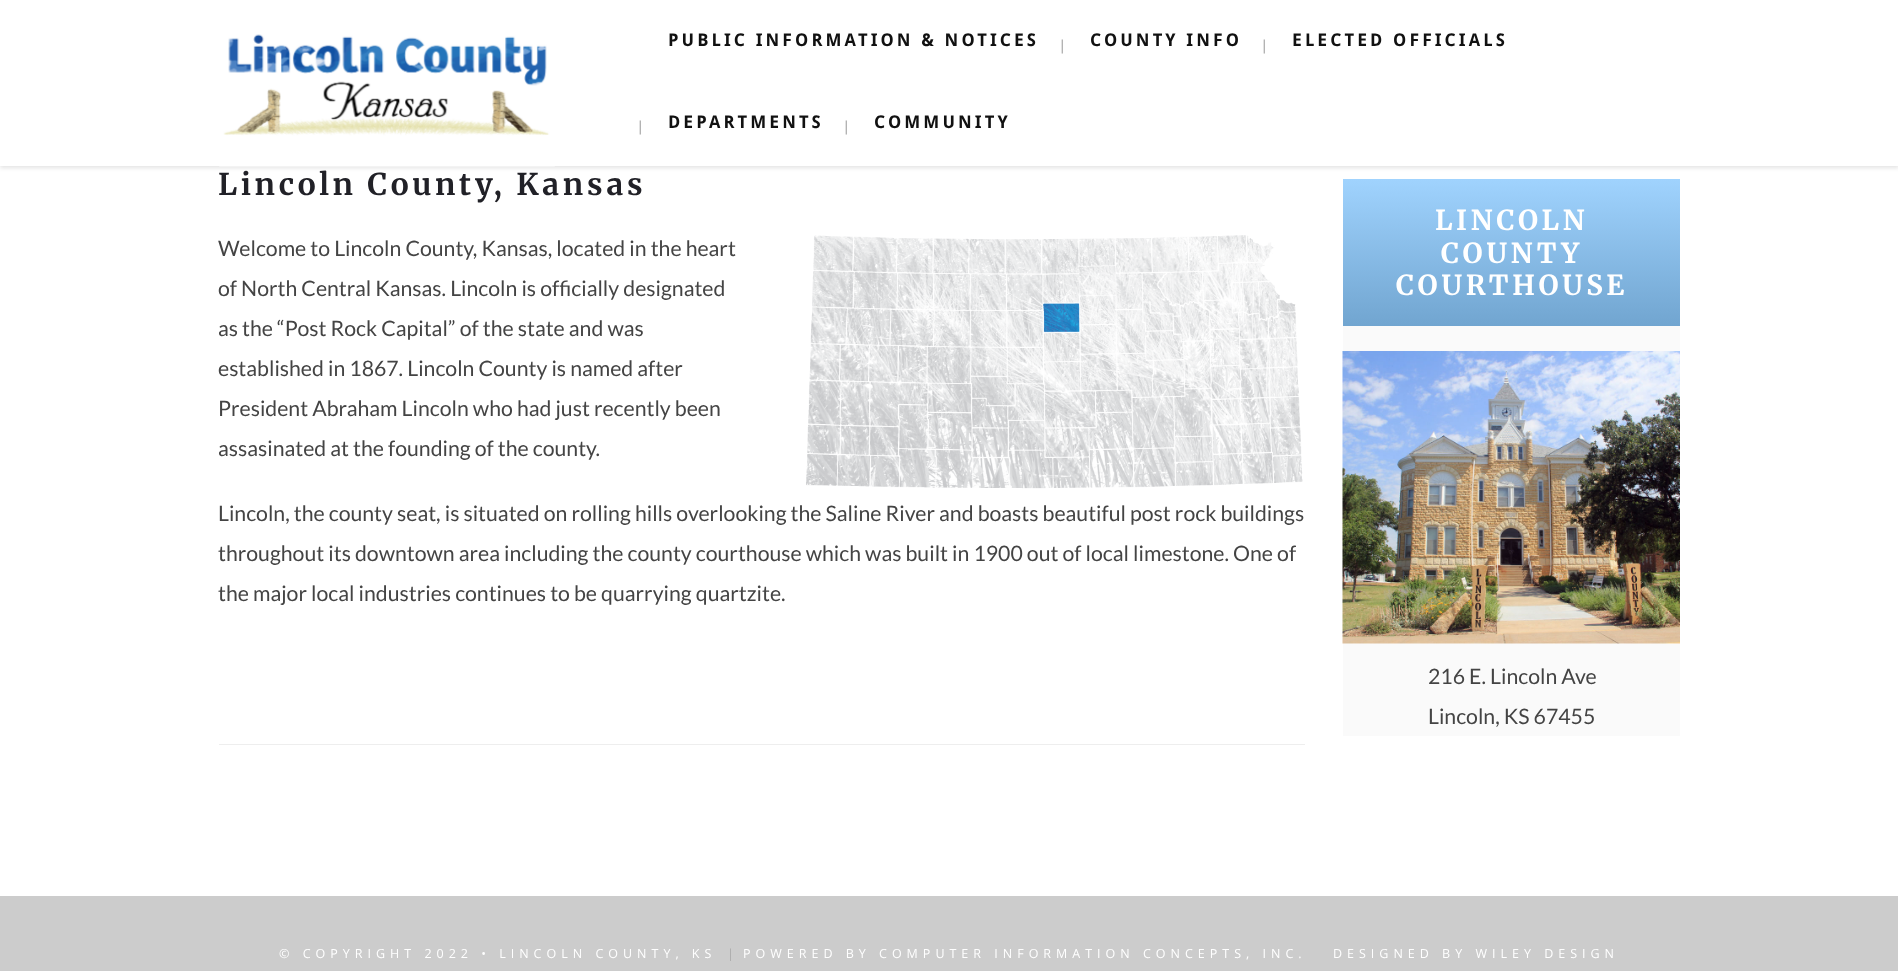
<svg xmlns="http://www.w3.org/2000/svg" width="1898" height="971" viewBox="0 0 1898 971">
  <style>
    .t1 { font: bold 17.5px Droid Sans; letter-spacing: 3.1px; fill: #111; }
    .t2 { font: 15px Lato; fill: #9e9e9e; }
    .t3 { font: bold 30px Merriweather; letter-spacing: 3.75px; fill: #212127; }
    .t4 { font: 21.25px Lato; fill: #444; }
    .t5 { font: bold 27.5px Merriweather; letter-spacing: 3.75px; fill: #fff; }
    .t6 { font: 12.5px Open Sans; letter-spacing: 5px; fill: #fff; }
    .t7 { font: 12.5px Open Sans; fill: #aaa; }
  </style>
  <defs>
    <linearGradient id="g1" gradientUnits="userSpaceOnUse" x1="1511" y1="179" x2="1511" y2="326"><stop offset="0" stop-color="#a0d3fe"/><stop offset="1" stop-color="#71a5d0"/></linearGradient>
  </defs>
  <rect width="100%" height="100%" fill="#fff"/>
  <rect x="0" y="1" width="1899" height="167" fill="#0000001c" filter="blur(2px)"/>
  <rect x="0" y="0" width="1898" height="166" fill="#fff"/>
  <image x="219" y="34" width="336" height="133" href="images/1.png"/>
  <text x="668" y="46" class="t1">PUBLIC INFORMATION &amp; NOTICES</text>
  <text x="1060" y="51" class="t2">|</text>
  <text x="1090" y="46" class="t1">COUNTY INFO</text>
  <text x="1262" y="51" class="t2">|</text>
  <text x="1292" y="46" class="t1">ELECTED OFFICIALS</text>
  <text x="638" y="132" class="t2">|</text>
  <text x="668" y="128" class="t1">DEPARTMENTS</text>
  <text x="844" y="132" class="t2">|</text>
  <text x="874" y="128" class="t1">COMMUNITY</text>
  <text x="218" y="195" class="t3">Lincoln County, Kansas</text>
  <text x="218" y="256" class="t4">Welcome to Lincoln County, Kansas, located in the heart</text>
  <image x="806" y="235" width="497" height="254" href="images/2.png"/>
  <text x="218" y="296" class="t4">of North Central Kansas. Lincoln is officially designated</text>
  <text x="218" y="336" class="t4">as the “Post Rock Capital” of the state and was</text>
  <text x="218" y="376" class="t4">established in 1867. Lincoln County is named after</text>
  <text x="218" y="416" class="t4">President Abraham Lincoln who had just recently been</text>
  <text x="218" y="456" class="t4">assasinated at the founding of the county.</text>
  <text x="218" y="521" class="t4">Lincoln, the county seat, is situated on rolling hills overlooking the Saline River and boasts beautiful post rock buildings</text>
  <text x="218" y="561" class="t4">throughout its downtown area including the county courthouse which was built in 1900 out of local limestone. One of</text>
  <text x="218" y="601" class="t4">the major local industries continues to be quarrying quartzite.</text>
  <rect x="219" y="744" width="1086" height="1" fill="#eee"/>
  <rect x="1343" y="326" width="337" height="410" fill="#fafafa"/>
  <rect x="1343" y="179" width="337" height="147" fill="url(#g1)"/>
  <text x="1435" y="230" class="t5">LINCOLN</text>
  <text x="1441" y="263" class="t5">COUNTY</text>
  <text x="1396" y="295" class="t5">COURTHOUSE</text>
  <image x="1342" y="351" width="338" height="293" href="images/3.png"/>
  <text x="1428" y="684" class="t4">216 E. Lincoln Ave</text>
  <text x="1428" y="724" class="t4">Lincoln, KS 67455</text>
  <rect x="0" y="896" width="1898" height="75" fill="#ccc"/>
  <text x="279" y="958" class="t6">© COPYRIGHT 2022 • LINCOLN COUNTY, KS</text>
  <text x="727" y="958" class="t7">|</text>
  <text x="743" y="958" class="t6">POWERED BY COMPUTER INFORMATION CONCEPTS, INC.</text>
  <text x="1333" y="958" class="t6">DESIGNED BY WILEY DESIGN</text>
</svg>
